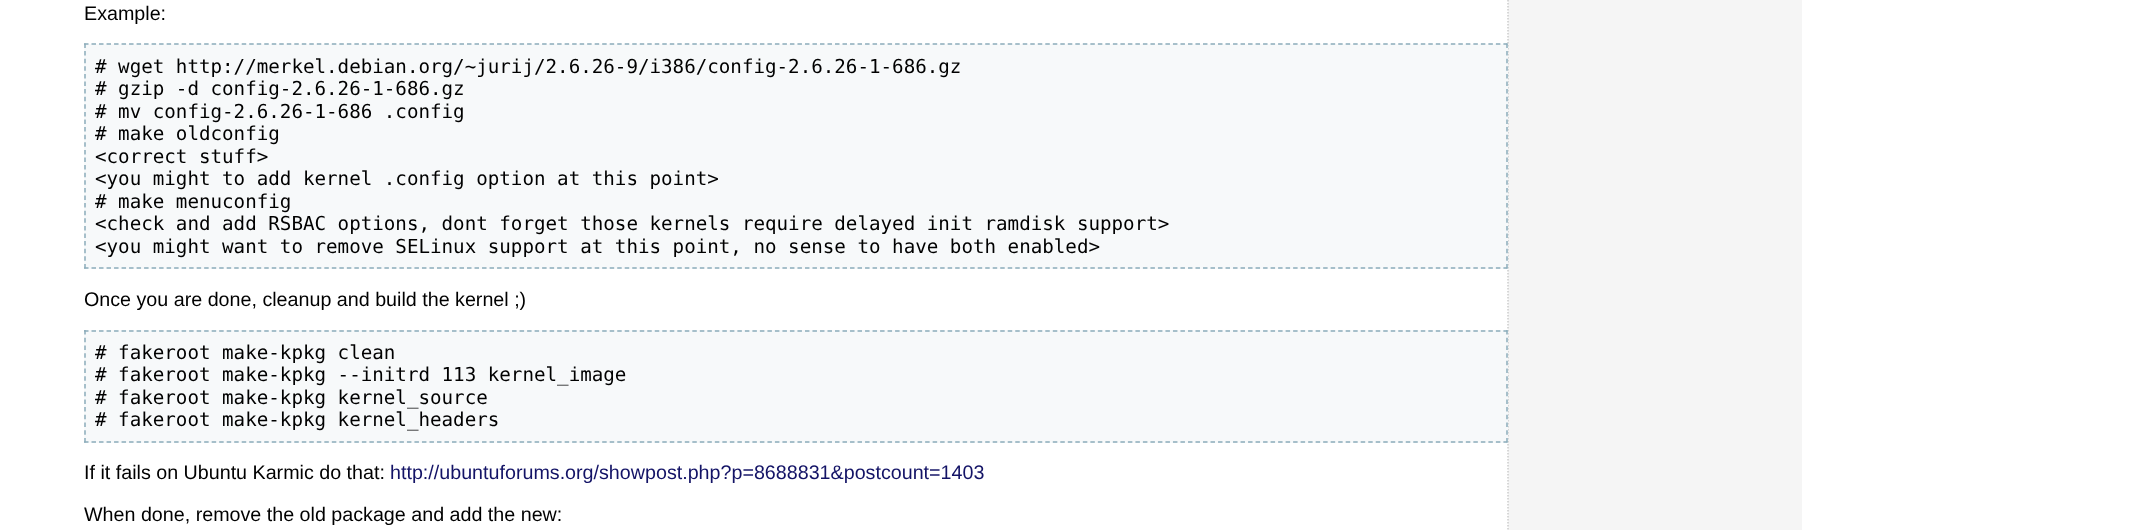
<svg xmlns="http://www.w3.org/2000/svg" width="2155" height="530" viewBox="0 0 2155 530">
  <style>
    .t1 { font: 19.7px Liberation Sans; fill: #000; }
    .t2 { font: 19.2px DejaVu Sans Mono; fill: #000; }
    .t3 { font: 19.7px Liberation Sans; fill: #131366; }
  </style>
  <rect width="100%" height="100%" fill="#fff"/>
  <text x="84" y="20" class="t1">Example:</text>
  <rect x="1508" y="0" width="294" height="530" fill="#f5f5f5"/>
  <path d="M1508-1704V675" fill="none" stroke="#ccc" stroke-width="1.5" stroke-dasharray="1.5 1.5"/>
  <rect x="84" y="44" width="1424" height="225" fill="#f7f9fa"/>
  <path d="M84 44H1507.5" fill="none" stroke="#8cacbb" stroke-width="1.5" stroke-dasharray="4.5 3.01"/>
  <path d="M1507 43.5V268.5" fill="none" stroke="#8cacbb" stroke-width="1.5" stroke-dasharray="4.5 3.1"/>
  <path d="M84 268H1507.5" fill="none" stroke="#8cacbb" stroke-width="1.5" stroke-dasharray="4.5 3.01"/>
  <path d="M85 43.5V268.5" fill="none" stroke="#8cacbb" stroke-width="1.5" stroke-dasharray="4.5 3.1"/>
  <text x="95" y="73" class="t2"># wget http://merkel.debian.org/~jurij/2.6.26-9/i386/config-2.6.26-1-686.gz</text>
  <text x="95" y="95" class="t2"># gzip -d config-2.6.26-1-686.gz</text>
  <text x="95" y="118" class="t2"># mv config-2.6.26-1-686 .config</text>
  <text x="95" y="140" class="t2"># make oldconfig</text>
  <text x="95" y="163" class="t2">&lt;correct stuff&gt;</text>
  <text x="95" y="185" class="t2">&lt;you might to add kernel .config option at this point&gt;</text>
  <text x="95" y="208" class="t2"># make menuconfig</text>
  <text x="95" y="230" class="t2">&lt;check and add RSBAC options, dont forget those kernels require delayed init ramdisk support&gt;</text>
  <text x="95" y="253" class="t2">&lt;you might want to remove SELinux support at this point, no sense to have both enabled&gt;</text>
  <text x="84" y="306" class="t1">Once you are done, cleanup and build the kernel ;)</text>
  <rect x="84" y="330" width="1424" height="113" fill="#f7f9fa"/>
  <path d="M84 331H1507.5" fill="none" stroke="#8cacbb" stroke-width="1.5" stroke-dasharray="4.5 3.01"/>
  <path d="M1507 330V442.5" fill="none" stroke="#8cacbb" stroke-width="1.5" stroke-dasharray="4.5 3.21"/>
  <path d="M84 442H1507.5" fill="none" stroke="#8cacbb" stroke-width="1.5" stroke-dasharray="4.5 3.01"/>
  <path d="M85 330V442.5" fill="none" stroke="#8cacbb" stroke-width="1.5" stroke-dasharray="4.5 3.21"/>
  <text x="95" y="359" class="t2"># fakeroot make-kpkg clean</text>
  <text x="95" y="381" class="t2"># fakeroot make-kpkg --initrd 113 kernel_image</text>
  <text x="95" y="404" class="t2"># fakeroot make-kpkg kernel_source</text>
  <text x="95" y="426" class="t2"># fakeroot make-kpkg kernel_headers</text>
  <text x="84" y="479" class="t1">If it fails on Ubuntu Karmic do that:</text>
  <text x="390" y="479" class="t3">http://ubuntuforums.org/showpost.php?p=8688831&amp;postcount=1403</text>
  <text x="84" y="521" class="t1">When done, remove the old package and add the new:</text>
</svg>
